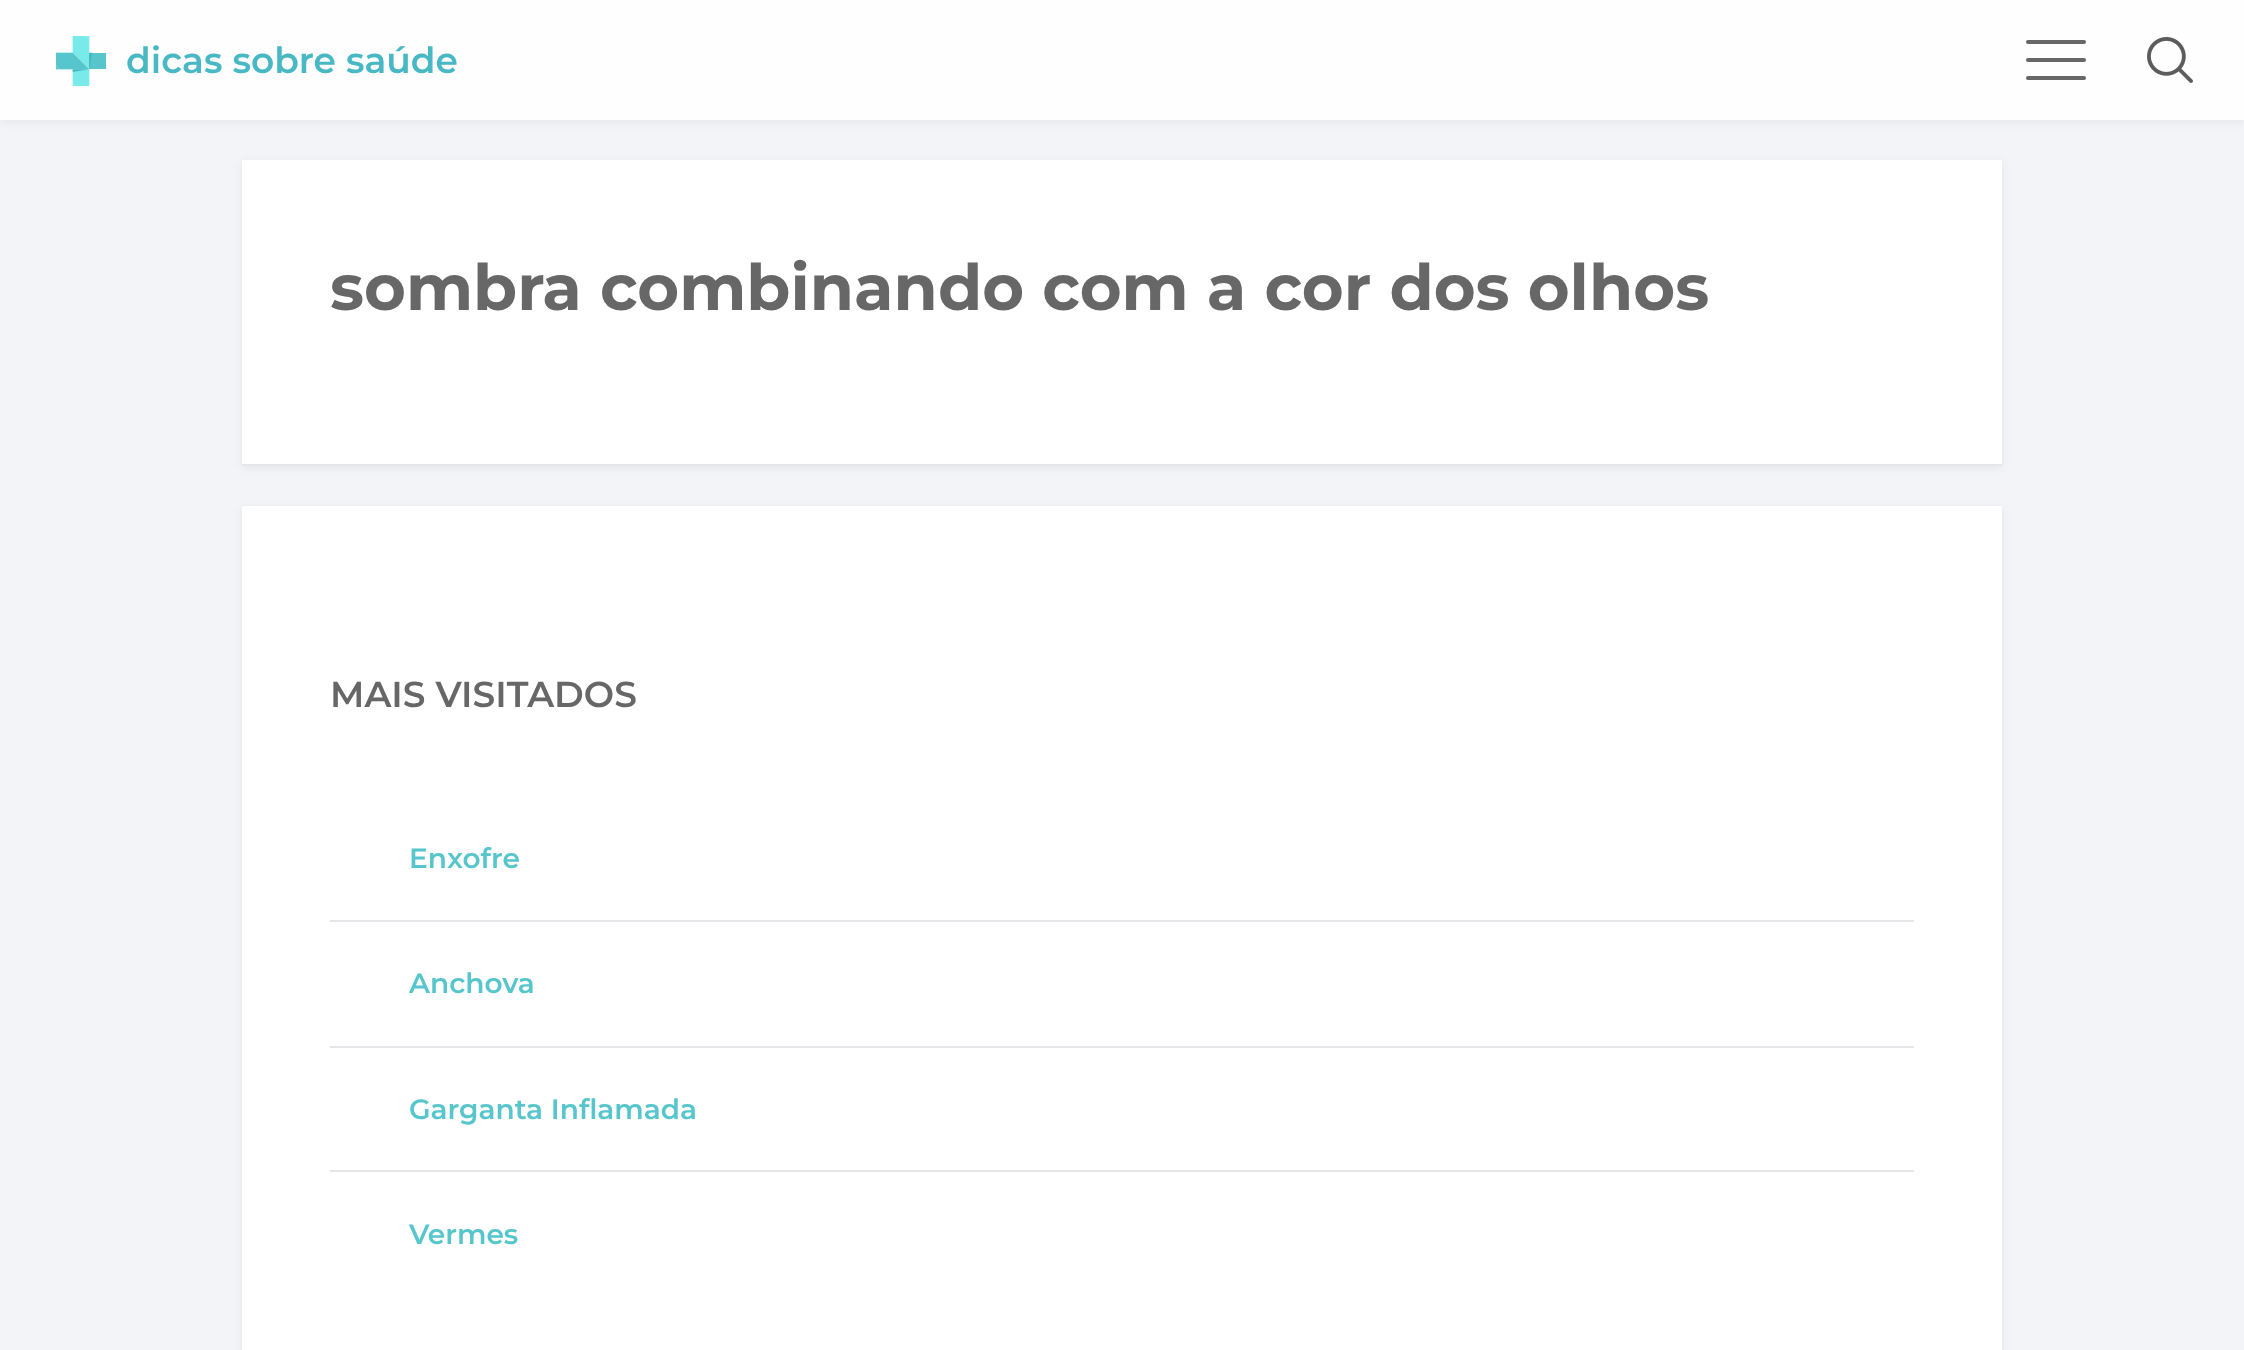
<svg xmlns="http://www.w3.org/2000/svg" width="2244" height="1350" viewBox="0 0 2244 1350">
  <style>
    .t1 { font: 600 36px Montserrat; fill: #48b9c4; }
    .t2 { font: bold 64px Montserrat; fill: #676767; }
    .t3 { font: 600 36px Montserrat; fill: #676767; }
    .t4 { font: 600 28px Montserrat; fill: #56c6cc; }
  </style>
  <rect width="100%" height="100%" fill="#f3f4f7"/>
  <rect x="0" y="2" width="2244" height="120" fill="#0000000f" filter="blur(5px)"/>
  <rect x="0" y="0" width="2244" height="120" fill="#fefeff"/>
  <image x="56" y="36" width="50" height="50" href="images/1.png"/>
  <text x="126" y="73" class="t1">dicas sobre saúde</text>
  <rect x="2026" y="58" width="60" height="4" rx="2" fill="#676767"/>
  <rect x="2026" y="40" width="60" height="4" rx="2" fill="#676767"/>
  <rect x="2026" y="76" width="60" height="4" rx="2" fill="#676767"/>
  <image x="2147" y="37" width="46" height="46" href="images/2.png"/>
  <rect x="242" y="162" width="1760" height="306" fill="#0000000f" filter="blur(5px)"/>
  <rect x="242" y="160" width="1760" height="304" fill="#fff"/>
  <rect x="242" y="464" width="1760" height="2" fill="#e5e6e9"/>
  <text x="330" y="310" class="t2">sombra combinando com a cor dos olhos</text>
  <rect x="242" y="508" width="1760" height="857" fill="#0000000f" filter="blur(5px)"/>
  <rect x="242" y="506" width="1760" height="844" fill="#fff"/>
  <text x="330" y="707" class="t3">MAIS VISITADOS</text>
  <text x="409" y="868" class="t4">Enxofre</text>
  <rect x="330" y="920" width="1584" height="2" fill="#e5e6e9"/>
  <text x="409" y="993" class="t4">Anchova</text>
  <rect x="330" y="1046" width="1584" height="2" fill="#e5e6e9"/>
  <text x="409" y="1119" class="t4">Garganta Inflamada</text>
  <rect x="330" y="1170" width="1584" height="2" fill="#e5e6e9"/>
  <text x="409" y="1244" class="t4">Vermes</text>
</svg>
